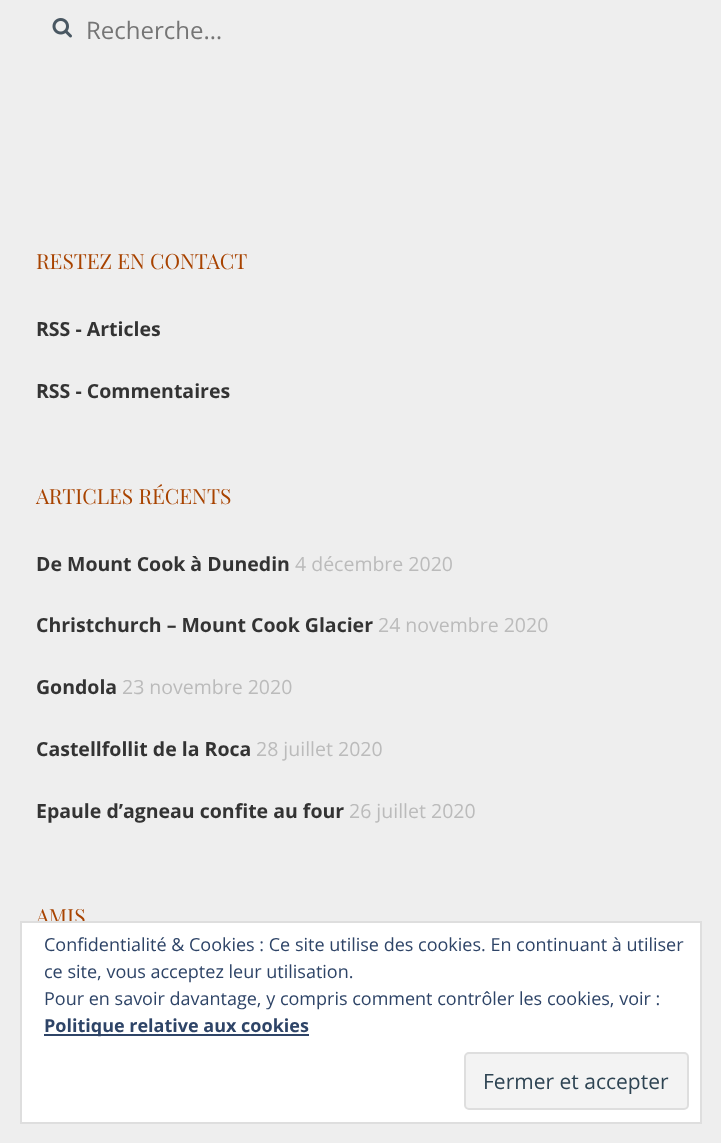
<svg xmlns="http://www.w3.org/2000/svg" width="721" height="1143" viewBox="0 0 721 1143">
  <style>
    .t1 { font: 24px Open Sans; fill: #757575; }
    .t2 { font: 21px Playfair Display; fill: #a84300; }
    .t3 { font: bold 19.5px Open Sans; fill: #333; }
    .t4 { font: 19.5px Open Sans; fill: #bbb; }
    .t5 { font: 18px Open Sans; fill: #2e4467; }
    .t6 { font: bold 18px Open Sans; fill: #2e4467; }
    .t7 { font: 21px Open Sans; fill: #2e4453; }
  </style>
  <rect width="100%" height="100%" fill="#eee"/>
  <image x="52" y="18" width="20" height="20" href="images/1.png"/>
  <text x="86" y="39" class="t1">Recherche…</text>
  <text x="36" y="269" class="t2">RESTEZ EN CONTACT</text>
  <text x="36" y="336" class="t3">RSS - Articles</text>
  <text x="36" y="398" class="t3">RSS - Commentaires</text>
  <text x="36" y="504" class="t2">ARTICLES RÉCENTS</text>
  <text x="36" y="571" class="t3">De Mount Cook à Dunedin</text>
  <text x="295" y="571" class="t4">4 décembre 2020</text>
  <text x="36" y="632" class="t3">Christchurch – Mount Cook Glacier</text>
  <text x="378" y="632" class="t4">24 novembre 2020</text>
  <text x="36" y="694" class="t3">Gondola</text>
  <text x="122" y="694" class="t4">23 novembre 2020</text>
  <text x="36" y="756" class="t3">Castellfollit de la Roca</text>
  <text x="256" y="756" class="t4">28 juillet 2020</text>
  <text x="36" y="818" class="t3">Epaule d’agneau confite au four</text>
  <text x="349" y="818" class="t4">26 juillet 2020</text>
  <text x="36" y="924" class="t2">AMIS</text>
  <rect x="21" y="922" width="680" height="201" fill="#fff" stroke="#dedede" stroke-width="2"/>
  <text x="44" y="951" class="t5">Confidentialité &amp; Cookies : Ce site utilise des cookies. En continuant à utiliser</text>
  <text x="44" y="978" class="t5">ce site, vous acceptez leur utilisation.</text>
  <text x="44" y="1005" class="t5">Pour en savoir davantage, y compris comment contrôler les cookies, voir :</text>
  <rect x="44" y="1034" width="265" height="2" fill="#2e4467"/>
  <text x="44" y="1032" class="t6">Politique relative aux cookies</text>
  <rect x="465" y="1053" width="223" height="56" rx="4" fill="#f3f3f3" stroke="#dedede" stroke-width="2"/>
  <text x="483" y="1089" class="t7">Fermer et accepter</text>
</svg>
